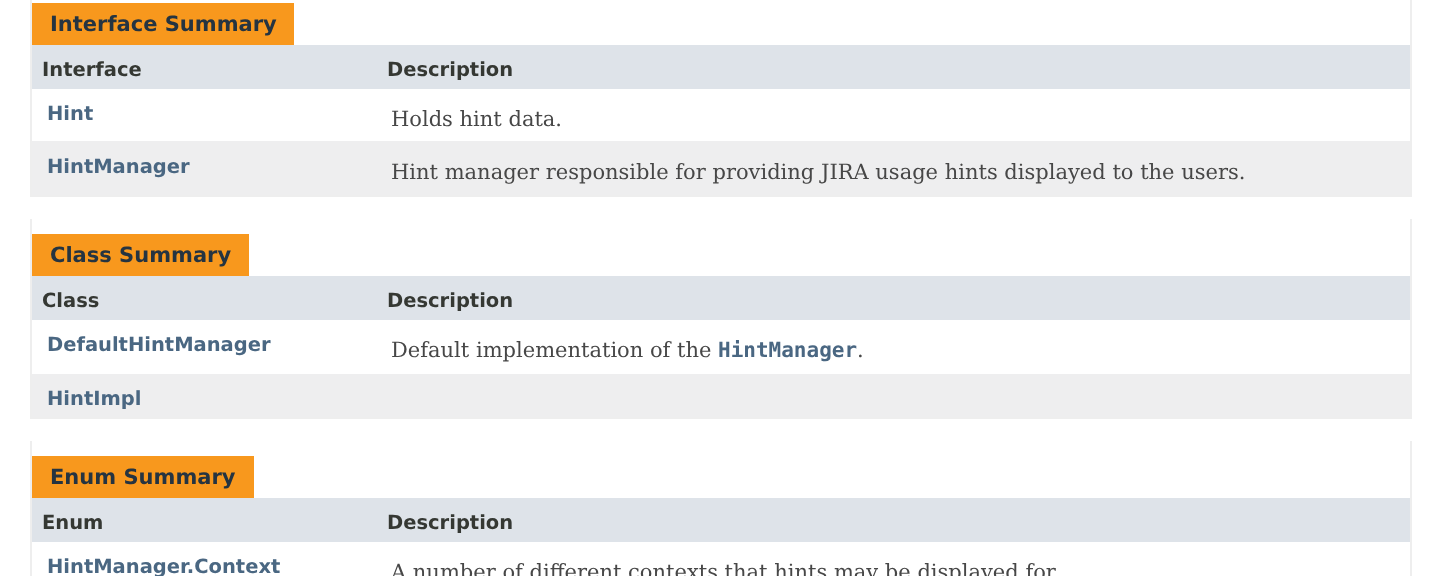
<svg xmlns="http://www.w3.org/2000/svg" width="1441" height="576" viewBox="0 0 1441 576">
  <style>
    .t1 { font: bold 21px DejaVu Sans; fill: #253441; }
    .t2 { font: bold 19.5px DejaVu Sans; fill: #353833; }
    .t3 { font: bold 19.5px DejaVu Sans; fill: #4a6782; }
    .t4 { font: 21px DejaVu Serif; fill: #474747; }
    .t5 { font: bold 21px DejaVu Sans Mono; fill: #4a6782; }
  </style>
  <rect width="100%" height="100%" fill="#fff"/>
  <rect x="1410" y="0" width="2" height="197" fill="#eee"/>
  <rect x="30" y="195" width="1382" height="2" fill="#eee"/>
  <rect x="30" y="0" width="2" height="197" fill="#eee"/>
  <rect x="32" y="3" width="262" height="42" fill="#f8981d"/>
  <text x="50" y="31" class="t1">Interface Summary</text>
  <rect x="32" y="45" width="1378" height="44" fill="#dee3e9"/>
  <text x="42" y="76" class="t2">Interface</text>
  <text x="387" y="76" class="t2">Description</text>
  <text x="47" y="120" class="t3">Hint</text>
  <text x="391" y="126" class="t4">Holds hint data.</text>
  <rect x="32" y="141" width="1378" height="54" fill="#eeeeef"/>
  <text x="47" y="173" class="t3">HintManager</text>
  <text x="391" y="179" class="t4">Hint manager responsible for providing JIRA usage hints displayed to the users.</text>
  <rect x="1410" y="219" width="2" height="200" fill="#eee"/>
  <rect x="30" y="417" width="1382" height="2" fill="#eee"/>
  <rect x="30" y="219" width="2" height="200" fill="#eee"/>
  <rect x="32" y="234" width="217" height="42" fill="#f8981d"/>
  <text x="50" y="262" class="t1">Class Summary</text>
  <rect x="32" y="276" width="1378" height="44" fill="#dee3e9"/>
  <text x="42" y="307" class="t2">Class</text>
  <text x="387" y="307" class="t2">Description</text>
  <text x="47" y="351" class="t3">DefaultHintManager</text>
  <text x="391" y="357" class="t4">Default implementation of the</text>
  <text x="718" y="357" class="t5">HintManager</text>
  <text x="857" y="357" class="t4">.</text>
  <rect x="32" y="374" width="1378" height="43" fill="#eeeeef"/>
  <text x="47" y="405" class="t3">HintImpl</text>
  <rect x="1410" y="441" width="2" height="135" fill="#eee"/>
  <rect x="30" y="441" width="2" height="135" fill="#eee"/>
  <rect x="32" y="456" width="222" height="42" fill="#f8981d"/>
  <text x="50" y="484" class="t1">Enum Summary</text>
  <rect x="32" y="498" width="1378" height="44" fill="#dee3e9"/>
  <text x="42" y="529" class="t2">Enum</text>
  <text x="387" y="529" class="t2">Description</text>
  <text x="47" y="573" class="t3">HintManager.Context</text>
  <text x="391" y="579" class="t4">A number of different contexts that hints may be displayed for.</text>
</svg>
